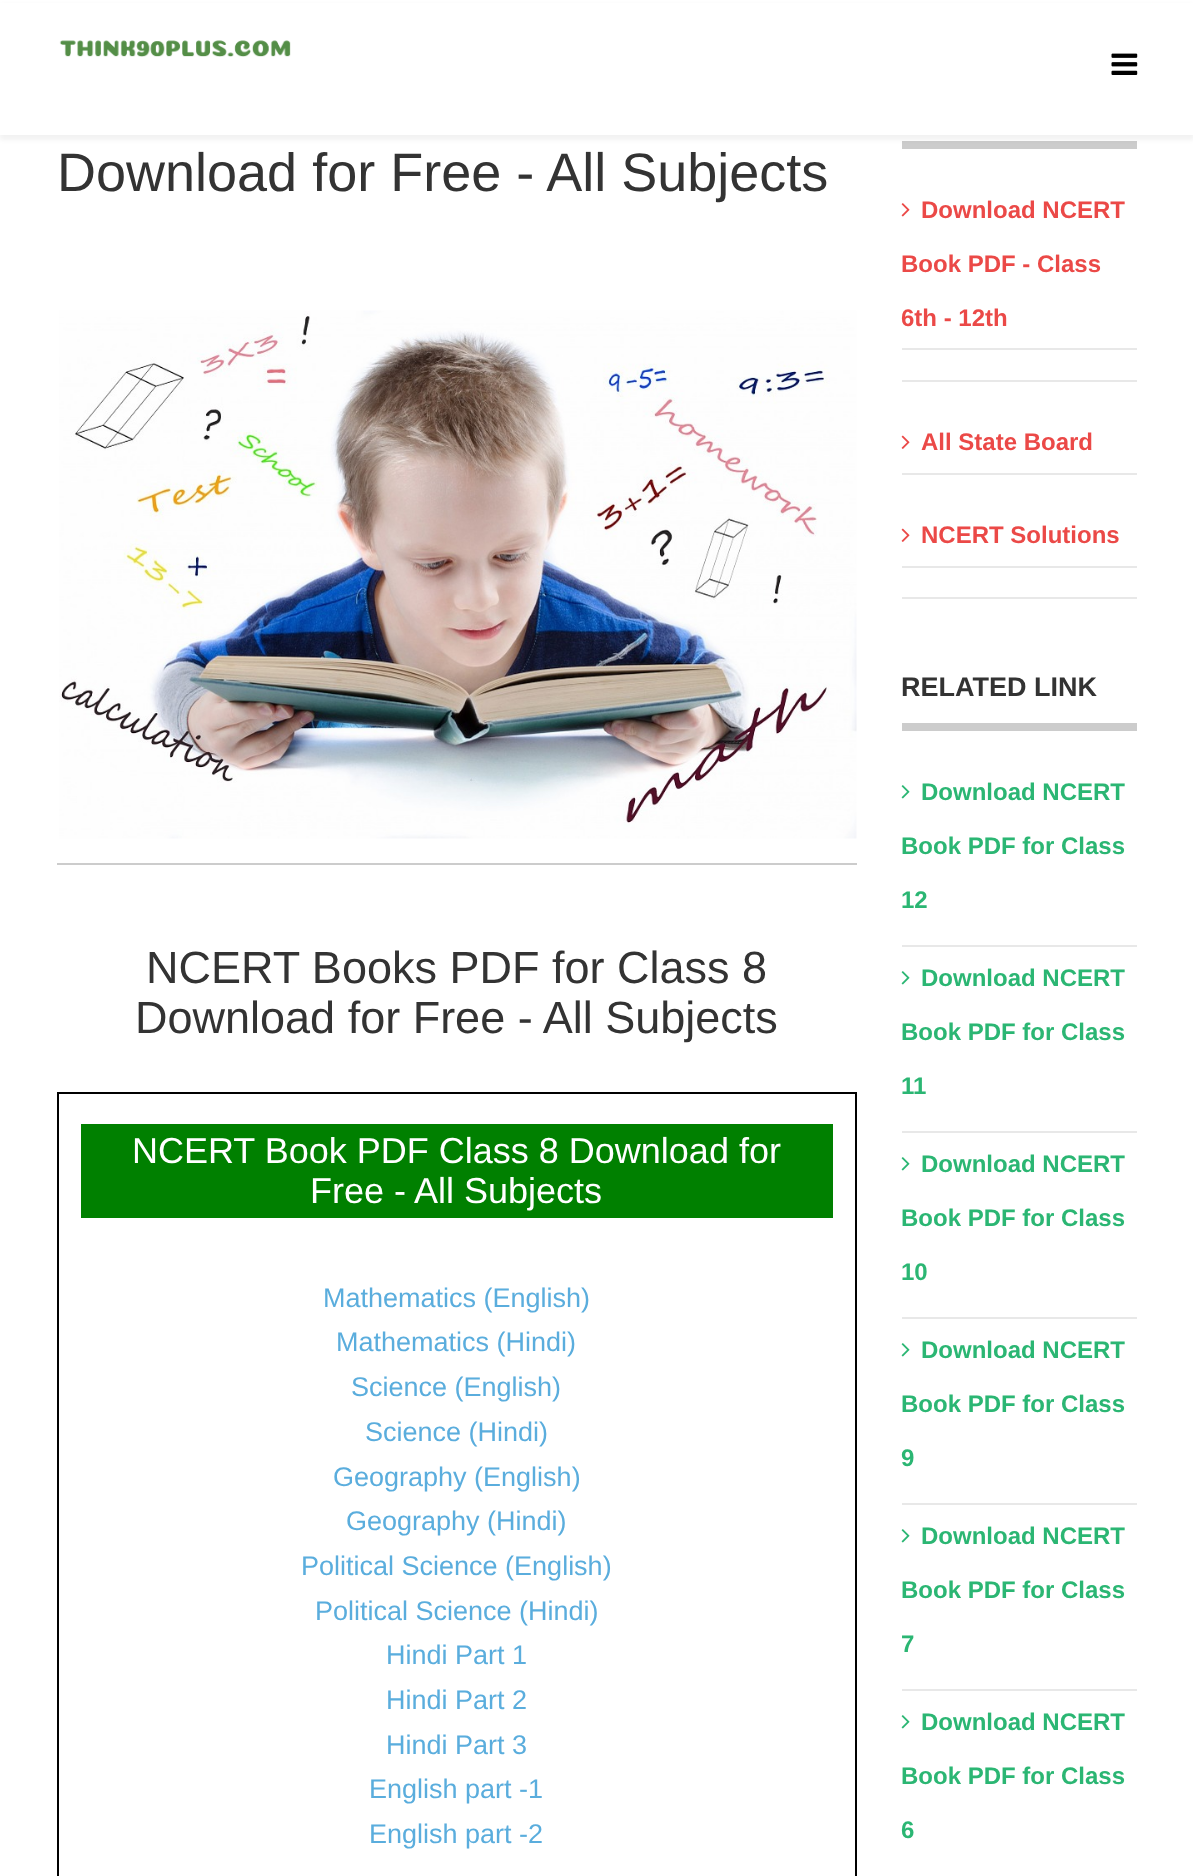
<svg xmlns="http://www.w3.org/2000/svg" width="1193" height="1876" viewBox="0 0 1193 1876">
  <style>
    .t1 { font: 54px Liberation Sans; fill: #333; }
    .t2 { font: 45px Liberation Sans; fill: #333; }
    .t3 { font: 36px Liberation Sans; fill: #fff; }
    .t4 { font: 27px Liberation Sans; fill: #5aaddd; }
    .t5 { font: bold 24px Liberation Sans; fill: #eb4947; }
    .t6 { font: bold 27px Liberation Sans; fill: #333; }
    .t7 { font: bold 24px Liberation Sans; fill: #2bb673; }
  </style>
  <rect width="100%" height="100%" fill="#fff"/>
  <rect x="902" y="141" width="235" height="8" fill="#ccc"/>
  <rect x="0" y="5" width="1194" height="135" fill="#0000000d" filter="blur(2px)"/>
  <rect x="0" y="3" width="1193" height="132" fill="#fff"/>
  <image x="59" y="40" width="232" height="17" href="images/1.png"/>
  <image x="1111" y="53" width="27" height="22" href="images/2.png"/>
  <text x="57" y="191" class="t1">Download for Free - All Subjects</text>
  <image x="59" y="310" width="798" height="529" href="images/3.png"/>
  <rect x="57" y="863" width="800" height="2" fill="#ccc"/>
  <text x="146" y="983" class="t2">NCERT Books PDF for Class 8</text>
  <text x="135" y="1033" class="t2">Download for Free - All Subjects</text>
  <rect x="58" y="1093" width="798" height="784" fill="none" stroke="#000" stroke-width="2"/>
  <rect x="81" y="1124" width="752" height="94" fill="#008000"/>
  <text x="132" y="1163" class="t3">NCERT Book PDF Class 8 Download for</text>
  <text x="310" y="1203" class="t3">Free - All Subjects</text>
  <text x="323" y="1307" class="t4">Mathematics (English)</text>
  <text x="336" y="1351" class="t4">Mathematics (Hindi)</text>
  <text x="351" y="1396" class="t4">Science (English)</text>
  <text x="365" y="1441" class="t4">Science (Hindi)</text>
  <text x="333" y="1486" class="t4">Geography (English)</text>
  <text x="346" y="1530" class="t4">Geography (Hindi)</text>
  <text x="301" y="1575" class="t4">Political Science (English)</text>
  <text x="315" y="1620" class="t4">Political Science (Hindi)</text>
  <text x="386" y="1664" class="t4">Hindi Part 1</text>
  <text x="386" y="1709" class="t4">Hindi Part 2</text>
  <text x="386" y="1754" class="t4">Hindi Part 3</text>
  <text x="369" y="1798" class="t4">English part -1</text>
  <text x="369" y="1843" class="t4">English part -2</text>
  <rect x="902" y="348" width="235" height="2" fill="#e8e8e8"/>
  <image x="901" y="203" width="9" height="14" href="images/4.png"/>
  <text x="921" y="218" class="t5">Download NCERT</text>
  <text x="901" y="272" class="t5">Book PDF - Class</text>
  <text x="901" y="326" class="t5">6th - 12th</text>
  <rect x="902" y="380" width="235" height="2" fill="#e8e8e8"/>
  <rect x="902" y="473" width="235" height="2" fill="#e8e8e8"/>
  <image x="901" y="435" width="9" height="14" href="images/5.png"/>
  <text x="921" y="450" class="t5">All State Board</text>
  <rect x="902" y="566" width="235" height="2" fill="#e8e8e8"/>
  <image x="901" y="528" width="9" height="14" href="images/5.png"/>
  <text x="921" y="543" class="t5">NCERT Solutions</text>
  <rect x="902" y="597" width="235" height="2" fill="#e8e8e8"/>
  <rect x="902" y="723" width="235" height="8" fill="#ccc"/>
  <text x="901" y="696" class="t6">RELATED LINK</text>
  <rect x="902" y="945" width="235" height="2" fill="#e8e8e8"/>
  <image x="901" y="785" width="9" height="14" href="images/6.png"/>
  <text x="921" y="800" class="t7">Download NCERT</text>
  <text x="901" y="854" class="t7">Book PDF for Class</text>
  <text x="901" y="908" class="t7">12</text>
  <rect x="902" y="1131" width="235" height="2" fill="#e8e8e8"/>
  <image x="901" y="971" width="9" height="14" href="images/6.png"/>
  <text x="921" y="986" class="t7">Download NCERT</text>
  <text x="901" y="1040" class="t7">Book PDF for Class</text>
  <text x="901" y="1094" class="t7">11</text>
  <rect x="902" y="1317" width="235" height="2" fill="#e8e8e8"/>
  <image x="901" y="1157" width="9" height="14" href="images/6.png"/>
  <text x="921" y="1172" class="t7">Download NCERT</text>
  <text x="901" y="1226" class="t7">Book PDF for Class</text>
  <text x="901" y="1280" class="t7">10</text>
  <rect x="902" y="1503" width="235" height="2" fill="#e8e8e8"/>
  <image x="901" y="1343" width="9" height="14" href="images/6.png"/>
  <text x="921" y="1358" class="t7">Download NCERT</text>
  <text x="901" y="1412" class="t7">Book PDF for Class</text>
  <text x="901" y="1466" class="t7">9</text>
  <rect x="902" y="1689" width="235" height="2" fill="#e8e8e8"/>
  <image x="901" y="1529" width="9" height="14" href="images/6.png"/>
  <text x="921" y="1544" class="t7">Download NCERT</text>
  <text x="901" y="1598" class="t7">Book PDF for Class</text>
  <text x="901" y="1652" class="t7">7</text>
  <image x="901" y="1715" width="9" height="14" href="images/6.png"/>
  <text x="921" y="1730" class="t7">Download NCERT</text>
  <text x="901" y="1784" class="t7">Book PDF for Class</text>
  <text x="901" y="1838" class="t7">6</text>
</svg>
